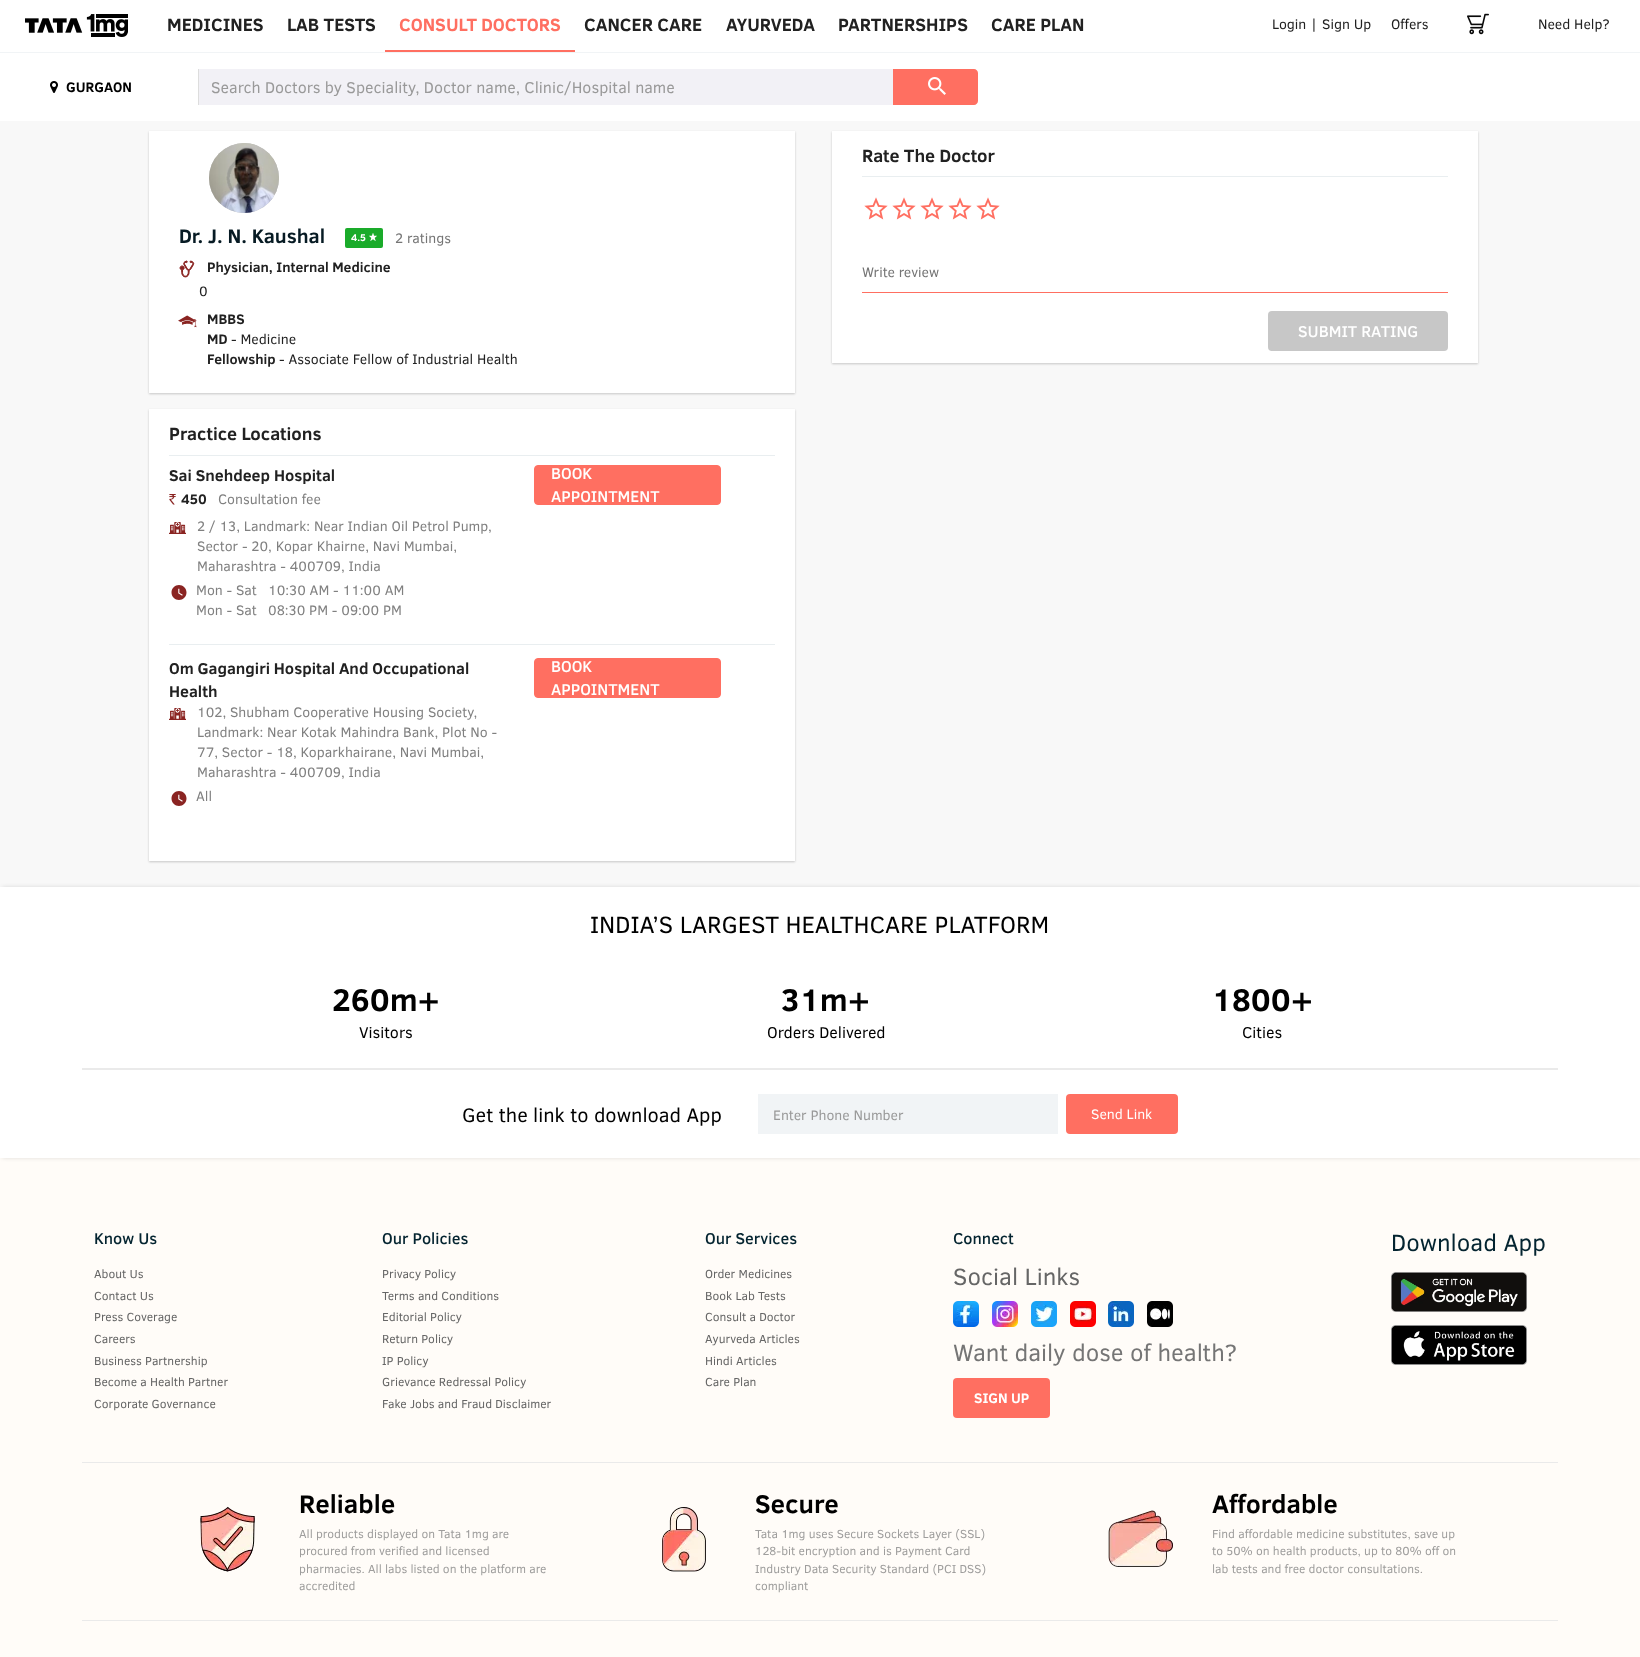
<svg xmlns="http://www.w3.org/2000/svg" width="1640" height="1657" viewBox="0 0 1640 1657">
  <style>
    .t1 { font: bold 18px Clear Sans; fill: #212121; }
    .t2 { font: bold 18px Clear Sans; fill: #ff6f61; }
    .t3 { font: 14px Clear Sans; fill: #212121; }
    .t4 { font: bold 14px Clear Sans; fill: #000; }
    .t5 { font: 16px Clear Sans; fill: #999; }
    .t6 { font: bold 20px Clear Sans; fill: #071b24; }
    .t7 { font: bold 10px Clear Sans; fill: #fff; }
    .t8 { font: 14px Clear Sans; fill: #757575; }
    .t9 { font: bold 14px Clear Sans; fill: #212121; }
    .t10 { font: bold 16px Clear Sans; fill: #212121; }
    .t11 { font: 14px Clear Sans; fill: #808080; }
    .t12 { font: 500 16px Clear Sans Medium; fill: #fff; }
    .t13 { font: 24px Clear Sans; fill: #000; }
    .t14 { font: bold 32px Clear Sans; fill: #000; }
    .t15 { font: 16px Clear Sans; fill: #000; }
    .t16 { font: 20px Clear Sans; fill: #000; }
    .t17 { font: 14px Clear Sans; fill: #999; }
    .t18 { font: 14px Clear Sans; fill: #fff; }
    .t19 { font: 500 16px Clear Sans Medium; fill: #042430; }
    .t20 { font: 12px Clear Sans; fill: #666; }
    .t21 { font: 24px Clear Sans; fill: #666; }
    .t22 { font: 24px Clear Sans; fill: #757575; }
    .t23 { font: bold 14px Clear Sans; fill: #fff; }
    .t24 { font: 24px Clear Sans; fill: #042430; }
    .t25 { font: bold 26px Clear Sans; fill: #000; }
    .t26 { font: 12px Clear Sans; fill: #9f9e9d; }
  </style>
  <rect width="100%" height="100%" fill="#f8f8f8"/>
  <rect x="0" y="0" width="1640" height="52" fill="#fff"/>
  <rect x="0" y="52" width="1640" height="1" fill="#f1f4f6"/>
  <image x="25" y="14" width="103" height="23" href="images/1.png"/>
  <text x="167" y="31" class="t1">MEDICINES</text>
  <text x="287" y="31" class="t1">LAB TESTS</text>
  <rect x="385" y="50" width="190" height="2" fill="#ff6f61"/>
  <text x="399" y="31" class="t2">CONSULT DOCTORS</text>
  <text x="584" y="31" class="t1">CANCER CARE</text>
  <text x="726" y="31" class="t1">AYURVEDA</text>
  <text x="838" y="31" class="t1">PARTNERSHIPS</text>
  <text x="991" y="31" class="t1">CARE PLAN</text>
  <text x="1272" y="29" class="t3">Login</text>
  <text x="1311" y="29" class="t3">|</text>
  <text x="1322" y="29" class="t3">Sign Up</text>
  <text x="1391" y="29" class="t3">Offers</text>
  <image x="1467" y="13" width="22" height="22" href="images/2.png"/>
  <text x="1538" y="29" class="t3">Need Help?</text>
  <rect x="0" y="53" width="1640" height="68" fill="#fff"/>
  <image x="50" y="81" width="8" height="12" href="images/3.png"/>
  <text x="66" y="92" class="t4">GURGAON</text>
  <rect x="199" y="69" width="694" height="36" fill="#f2f1f6"/>
  <rect x="198" y="69" width="1" height="36" fill="#ddd"/>
  <text x="211" y="93" class="t5">Search Doctors by Speciality, Doctor name, Clinic/Hospital name</text>
  <path d="M893 69H974C976 69 978 71 978 73V101C978 103 976 105 974 105H893Z" fill="#ff6f61"/>
  <image x="928" y="77" width="18" height="18" href="images/4.png"/>
  <rect x="149" y="132" width="646" height="262" fill="#00000033" filter="blur(1px)"/>
  <rect x="149" y="131" width="646" height="262" fill="#fff"/>
  <circle cx="244" cy="178" r="35" fill="#bcbcbc"/>
  <image x="209" y="143" width="70" height="70" href="images/5.png"/>
  <text x="179" y="243" class="t6">Dr. J. N. Kaushal</text>
  <rect x="345" y="228" width="38" height="20" rx="2" fill="#1aab2a"/>
  <text x="351" y="241" class="t7">4.5</text>
  <image x="369" y="233" width="8" height="8" href="images/6.png"/>
  <text x="395" y="243" class="t8">2 ratings</text>
  <image x="179" y="260" width="16" height="18" href="images/7.png"/>
  <text x="207" y="272" class="t9">Physician, Internal Medicine</text>
  <text x="199" y="296" class="t3">0</text>
  <image x="178" y="315" width="19" height="13" href="images/8.png"/>
  <text x="207" y="324" class="t9">MBBS</text>
  <text x="207" y="344" class="t9">MD</text>
  <text x="231" y="344" class="t3">- Medicine</text>
  <text x="207" y="364" class="t9">Fellowship</text>
  <text x="279" y="364" class="t3">- Associate Fellow of Industrial Health</text>
  <rect x="149" y="410" width="646" height="452" fill="#00000033" filter="blur(1px)"/>
  <rect x="149" y="409" width="646" height="452" fill="#fff"/>
  <rect x="169" y="455" width="606" height="1" fill="#e9eef0"/>
  <text x="169" y="440" class="t1">Practice Locations</text>
  <rect x="169" y="644" width="606" height="1" fill="#e9eef0"/>
  <text x="169" y="481" class="t10">Sai Snehdeep Hospital</text>
  <image x="169" y="494" width="7" height="11" href="images/9.png"/>
  <text x="181" y="504" class="t9">450</text>
  <text x="218" y="504" class="t11">Consultation fee</text>
  <image x="169" y="522" width="17" height="12" href="images/10.png"/>
  <text x="197" y="531" class="t11">2 / 13, Landmark: Near Indian Oil Petrol Pump,</text>
  <text x="197" y="551" class="t11">Sector - 20, Kopar Khairne, Navi Mumbai,</text>
  <text x="197" y="571" class="t11">Maharashtra - 400709, India</text>
  <image x="171" y="585" width="16" height="15" href="images/11.png"/>
  <text x="196" y="595" class="t11">Mon - Sat</text>
  <text x="268" y="595" class="t11">10:30 AM - 11:00 AM</text>
  <text x="196" y="615" class="t11">Mon - Sat</text>
  <text x="268" y="615" class="t11">08:30 PM - 09:00 PM</text>
  <rect x="534.5" y="465.5" width="186" height="39" rx="3.5" fill="#ff6f61" stroke="#ff6f61"/>
  <text x="551" y="479" class="t12">BOOK</text>
  <text x="551" y="502" class="t12">APPOINTMENT</text>
  <text x="169" y="674" class="t10">Om Gagangiri Hospital And Occupational</text>
  <text x="169" y="697" class="t10">Health</text>
  <image x="169" y="708" width="17" height="12" href="images/10.png"/>
  <text x="197" y="717" class="t11">102, Shubham Cooperative Housing Society,</text>
  <text x="197" y="737" class="t11">Landmark: Near Kotak Mahindra Bank, Plot No -</text>
  <text x="197" y="757" class="t11">77, Sector - 18, Koparkhairane, Navi Mumbai,</text>
  <text x="197" y="777" class="t11">Maharashtra - 400709, India</text>
  <image x="171" y="791" width="16" height="15" href="images/11.png"/>
  <text x="196" y="801" class="t11">All</text>
  <rect x="534.5" y="658.5" width="186" height="39" rx="3.5" fill="#ff6f61" stroke="#ff6f61"/>
  <text x="551" y="672" class="t12">BOOK</text>
  <text x="551" y="695" class="t12">APPOINTMENT</text>
  <rect x="832" y="132" width="646" height="232" fill="#00000033" filter="blur(1px)"/>
  <rect x="832" y="131" width="646" height="232" fill="#fff"/>
  <rect x="862" y="176" width="586" height="1" fill="#e9eef0"/>
  <text x="862" y="162" class="t1">Rate The Doctor</text>
  <image x="864" y="197" width="24" height="23" href="images/12.png"/>
  <image x="892" y="197" width="24" height="23" href="images/12.png"/>
  <image x="920" y="197" width="24" height="23" href="images/12.png"/>
  <image x="948" y="197" width="24" height="23" href="images/12.png"/>
  <image x="976" y="197" width="24" height="23" href="images/12.png"/>
  <text x="862" y="277" class="t8">Write review</text>
  <rect x="862" y="292" width="586" height="1" fill="#ff6f61"/>
  <rect x="1268" y="311" width="180" height="40" rx="4" fill="#c7c7c7"/>
  <text x="1298" y="337" class="t12">SUBMIT RATING</text>
  <rect x="0" y="1158" width="1640" height="499" fill="#fffcf8"/>
  <rect x="2" y="887" width="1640" height="271" fill="#0000001f" filter="blur(2px)"/>
  <rect x="0" y="887" width="1640" height="271" fill="#fff"/>
  <text x="590" y="933" class="t13">INDIA’S LARGEST HEALTHCARE PLATFORM</text>
  <text x="332" y="1011" class="t14">260m+</text>
  <text x="359" y="1038" class="t15">Visitors</text>
  <text x="781" y="1011" class="t14">31m+</text>
  <text x="767" y="1038" class="t15">Orders Delivered</text>
  <text x="1212" y="1011" class="t14">1800+</text>
  <text x="1242" y="1038" class="t15">Cities</text>
  <rect x="82" y="1068" width="1476" height="2" fill="#eaeaea"/>
  <text x="462" y="1122" class="t16">Get the link to download App</text>
  <rect x="758" y="1094" width="300" height="40" fill="#f1f4f6"/>
  <text x="773" y="1120" class="t17">Enter Phone Number</text>
  <rect x="1066" y="1094" width="112" height="40" rx="4" fill="#ff6f61"/>
  <text x="1091" y="1119" class="t18">Send Link</text>
  <text x="94" y="1244" class="t19">Know Us</text>
  <text x="94" y="1278" class="t20">About Us</text>
  <text x="94" y="1300" class="t20">Contact Us</text>
  <text x="94" y="1321" class="t20">Press Coverage</text>
  <text x="94" y="1343" class="t20">Careers</text>
  <text x="94" y="1365" class="t20">Business Partnership</text>
  <text x="94" y="1386" class="t20">Become a Health Partner</text>
  <text x="94" y="1408" class="t20">Corporate Governance</text>
  <text x="382" y="1244" class="t19">Our Policies</text>
  <text x="382" y="1278" class="t20">Privacy Policy</text>
  <text x="382" y="1300" class="t20">Terms and Conditions</text>
  <text x="382" y="1321" class="t20">Editorial Policy</text>
  <text x="382" y="1343" class="t20">Return Policy</text>
  <text x="382" y="1365" class="t20">IP Policy</text>
  <text x="382" y="1386" class="t20">Grievance Redressal Policy</text>
  <text x="382" y="1408" class="t20">Fake Jobs and Fraud Disclaimer</text>
  <text x="705" y="1244" class="t19">Our Services</text>
  <text x="705" y="1278" class="t20">Order Medicines</text>
  <text x="705" y="1300" class="t20">Book Lab Tests</text>
  <text x="705" y="1321" class="t20">Consult a Doctor</text>
  <text x="705" y="1343" class="t20">Ayurveda Articles</text>
  <text x="705" y="1365" class="t20">Hindi Articles</text>
  <text x="705" y="1386" class="t20">Care Plan</text>
  <text x="953" y="1244" class="t19">Connect</text>
  <text x="953" y="1285" class="t21">Social Links</text>
  <image x="953" y="1301" width="26" height="26" href="images/13.png"/>
  <image x="992" y="1301" width="26" height="26" href="images/14.png"/>
  <image x="1031" y="1301" width="26" height="26" href="images/15.png"/>
  <image x="1070" y="1301" width="26" height="26" href="images/16.png"/>
  <image x="1108" y="1301" width="26" height="26" href="images/17.png"/>
  <image x="1147" y="1301" width="26" height="26" href="images/18.png"/>
  <text x="953" y="1361" class="t22">Want daily dose of health?</text>
  <rect x="953" y="1378" width="97" height="40" rx="4" fill="#ff6f61"/>
  <text x="974" y="1403" class="t23">SIGN UP</text>
  <text x="1391" y="1251" class="t24">Download App</text>
  <image x="1391" y="1272" width="136" height="40" href="images/19.png"/>
  <image x="1391" y="1325" width="136" height="40" href="images/20.png"/>
  <rect x="82" y="1462" width="1476" height="1" fill="#eaeaea"/>
  <rect x="82" y="1620" width="1476" height="1" fill="#eaeaea"/>
  <image x="200" y="1506" width="55" height="66" href="images/21.png"/>
  <text x="299" y="1513" class="t25">Reliable</text>
  <text x="299" y="1538" class="t26">All products displayed on Tata 1mg are</text>
  <text x="299" y="1555" class="t26">procured from verified and licensed</text>
  <text x="299" y="1573" class="t26">pharmacies. All labs listed on the platform are</text>
  <text x="299" y="1590" class="t26">accredited</text>
  <image x="662" y="1507" width="44" height="65" href="images/22.png"/>
  <text x="755" y="1513" class="t25">Secure</text>
  <text x="755" y="1538" class="t26">Tata 1mg uses Secure Sockets Layer (SSL)</text>
  <text x="755" y="1555" class="t26">128-bit encryption and is Payment Card</text>
  <text x="755" y="1573" class="t26">Industry Data Security Standard (PCI DSS)</text>
  <text x="755" y="1590" class="t26">compliant</text>
  <image x="1108" y="1510" width="65" height="57" href="images/23.png"/>
  <text x="1212" y="1513" class="t25">Affordable</text>
  <text x="1212" y="1538" class="t26">Find affordable medicine substitutes, save up</text>
  <text x="1212" y="1555" class="t26">to 50% on health products, up to 80% off on</text>
  <text x="1212" y="1573" class="t26">lab tests and free doctor consultations.</text>
</svg>
